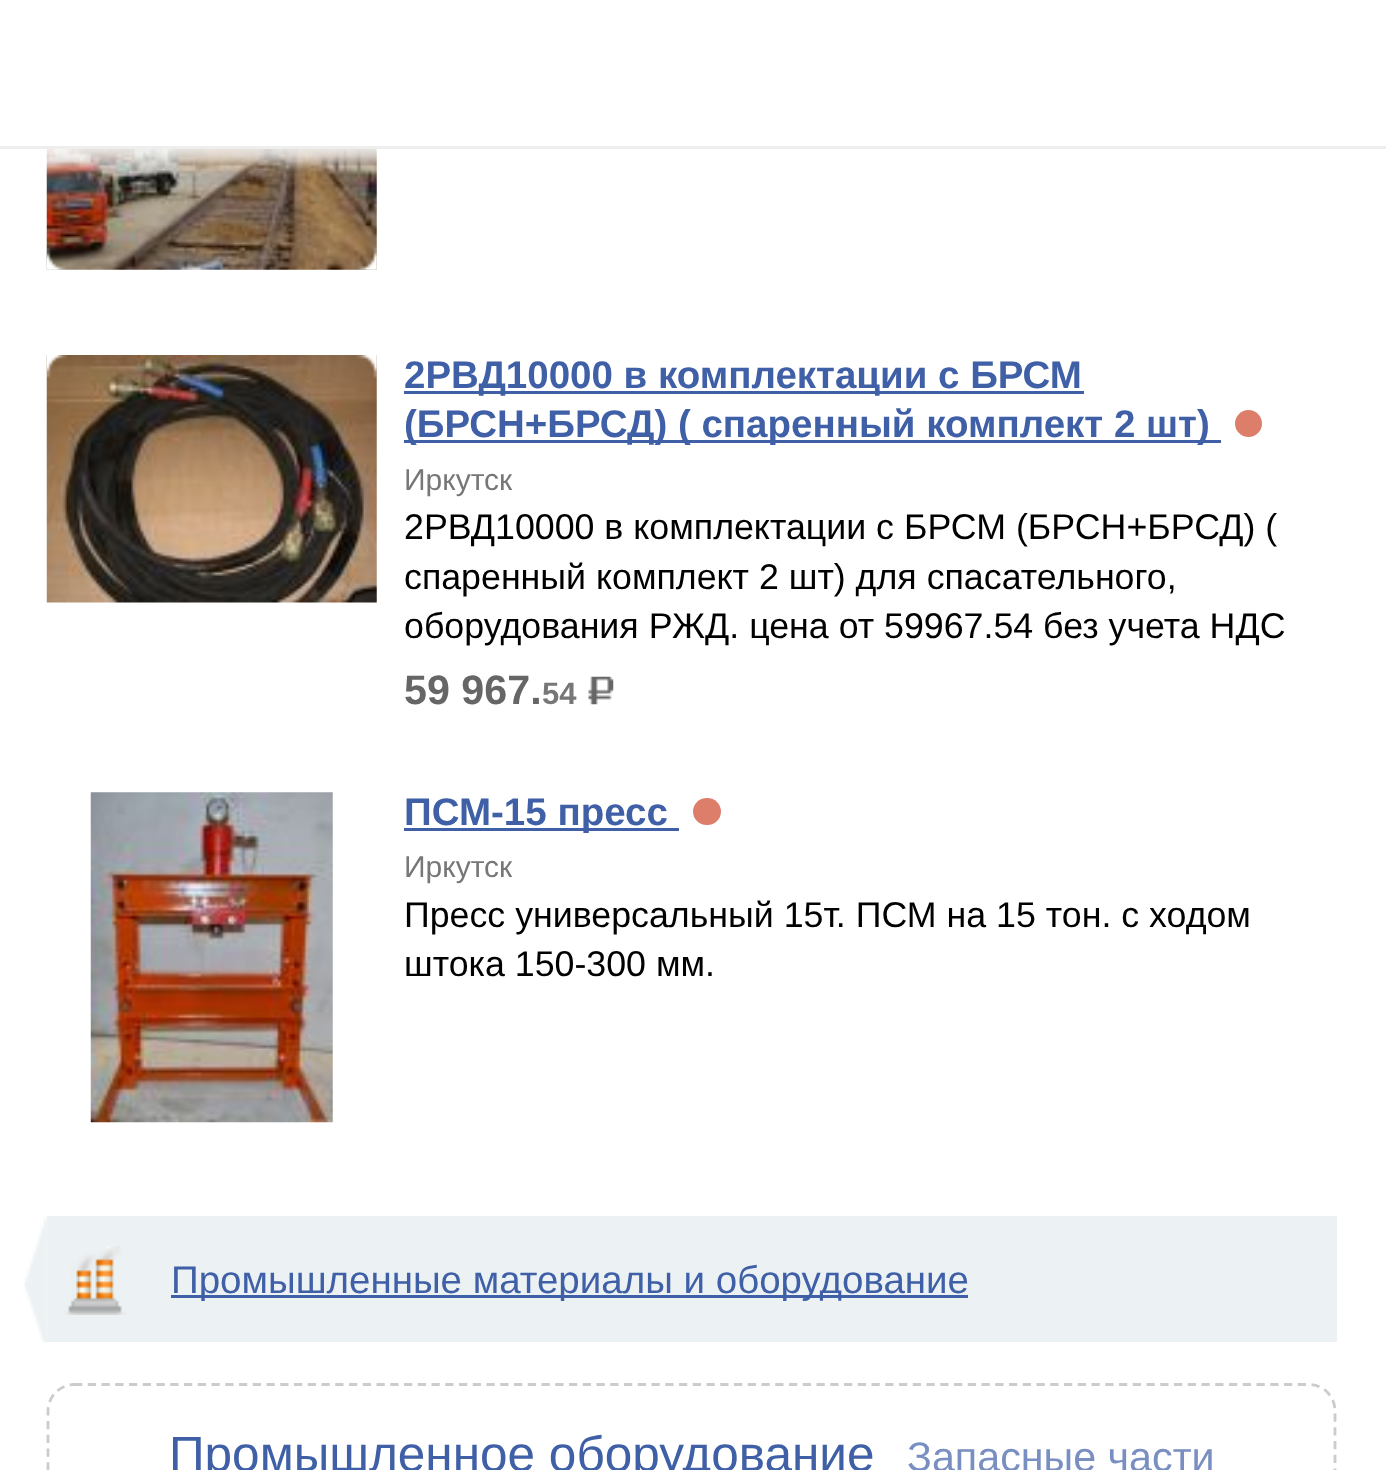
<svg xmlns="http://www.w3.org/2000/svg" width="1386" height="1470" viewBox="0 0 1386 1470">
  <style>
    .t1 { font: bold 38.5px Liberation Sans; fill: #3f5fa6; }
    .t2 { font: 30px Liberation Sans; fill: #777; }
    .t3 { font: 35.75px Liberation Sans; fill: #000; }
    .t4 { font: bold 41.25px Liberation Sans; fill: #666; }
    .t5 { font: bold 31px Liberation Sans; fill: #777; }
    .t6 { font: 38.5px Liberation Sans; fill: #3f5fa6; }
    .t7 { font: 49.5px Liberation Sans; fill: #3f5fa6; }
    .t8 { font: 41.25px Liberation Sans; fill: #798fc1; }
  </style>
  <rect width="100%" height="100%" fill="#fff"/>
  <image x="46" y="149" width="331" height="121" href="images/1.png"/>
  <rect x="0" y="14" width="1386" height="148" fill="#ffffff99" filter="blur(7px)"/>
  <rect x="0" y="52" width="1386" height="108" fill="#ffffff99" filter="blur(7px)"/>
  <rect x="0" y="146" width="1386" height="3" fill="#eee"/>
  <image x="46" y="247" width="331" height="23" href="images/2.png"/>
  <image x="46" y="355" width="331" height="248" href="images/3.png"/>
  <image x="46" y="355" width="331" height="23" href="images/4.png"/>
  <rect x="404" y="391" width="680" height="3" fill="#3f5fa6"/>
  <text x="404" y="388" class="t1">2РВД10000 в комплектации с БРСМ</text>
  <rect x="404" y="440" width="817" height="3" fill="#3f5fa6"/>
  <text x="404" y="437" class="t1">(БРСН+БРСД) ( спаренный комплект 2 шт)</text>
  <circle cx="1248.5" cy="423.5" r="13.5" fill="#dd7e6b"/>
  <text x="404" y="490" class="t2">Иркутск</text>
  <text x="404" y="539" class="t3">2РВД10000 в комплектации с БРСМ (БРСН+БРСД) (</text>
  <text x="404" y="589" class="t3">спаренный комплект 2 шт) для спасательного,</text>
  <text x="404" y="638" class="t3">оборудования РЖД. цена от 59967.54 без учета НДС</text>
  <text x="404" y="704" class="t4">59 967.</text>
  <text x="542" y="704" class="t5">54</text>
  <image x="588" y="676" width="26" height="29" href="images/5.png"/>
  <image x="90" y="792" width="243" height="331" href="images/6.png"/>
  <rect x="404" y="828" width="275" height="3" fill="#3f5fa6"/>
  <text x="404" y="825" class="t1">ПСМ-15 пресс</text>
  <rect x="693" y="798" width="28" height="27" rx="13.5" fill="#dd7e6b"/>
  <text x="404" y="877" class="t2">Иркутск</text>
  <text x="404" y="927" class="t3">Пресс универсальный 15т. ПСМ на 15 тон. с ходом</text>
  <text x="404" y="976" class="t3">штока 150-300 мм.</text>
  <rect x="47" y="1216" width="1290" height="126" fill="#ecf2f4"/>
  <image x="24" y="1216" width="23" height="127" href="images/7.png"/>
  <image x="64" y="1246" width="62" height="69" href="images/8.png"/>
  <rect x="171" y="1295" width="797" height="3" fill="#3f5fa6"/>
  <text x="171" y="1293" class="t6">Промышленные материалы и оборудование</text>
  <path d="M74 1384.5H1309C1323.5 1384.5 1335 1396.5 1335 1411V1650C1335 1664.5 1323.5 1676 1309 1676H74C60 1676 48 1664.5 48 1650V1411C48 1396.5 60 1384.5 74 1384.5Z" fill="none" stroke="#ccc" stroke-width="2.8" stroke-dasharray="8.25 5.5"/>
  <text x="169" y="1471" class="t7">Промышленное оборудование</text>
  <text x="907" y="1471" class="t8">Запасные части</text>
</svg>
